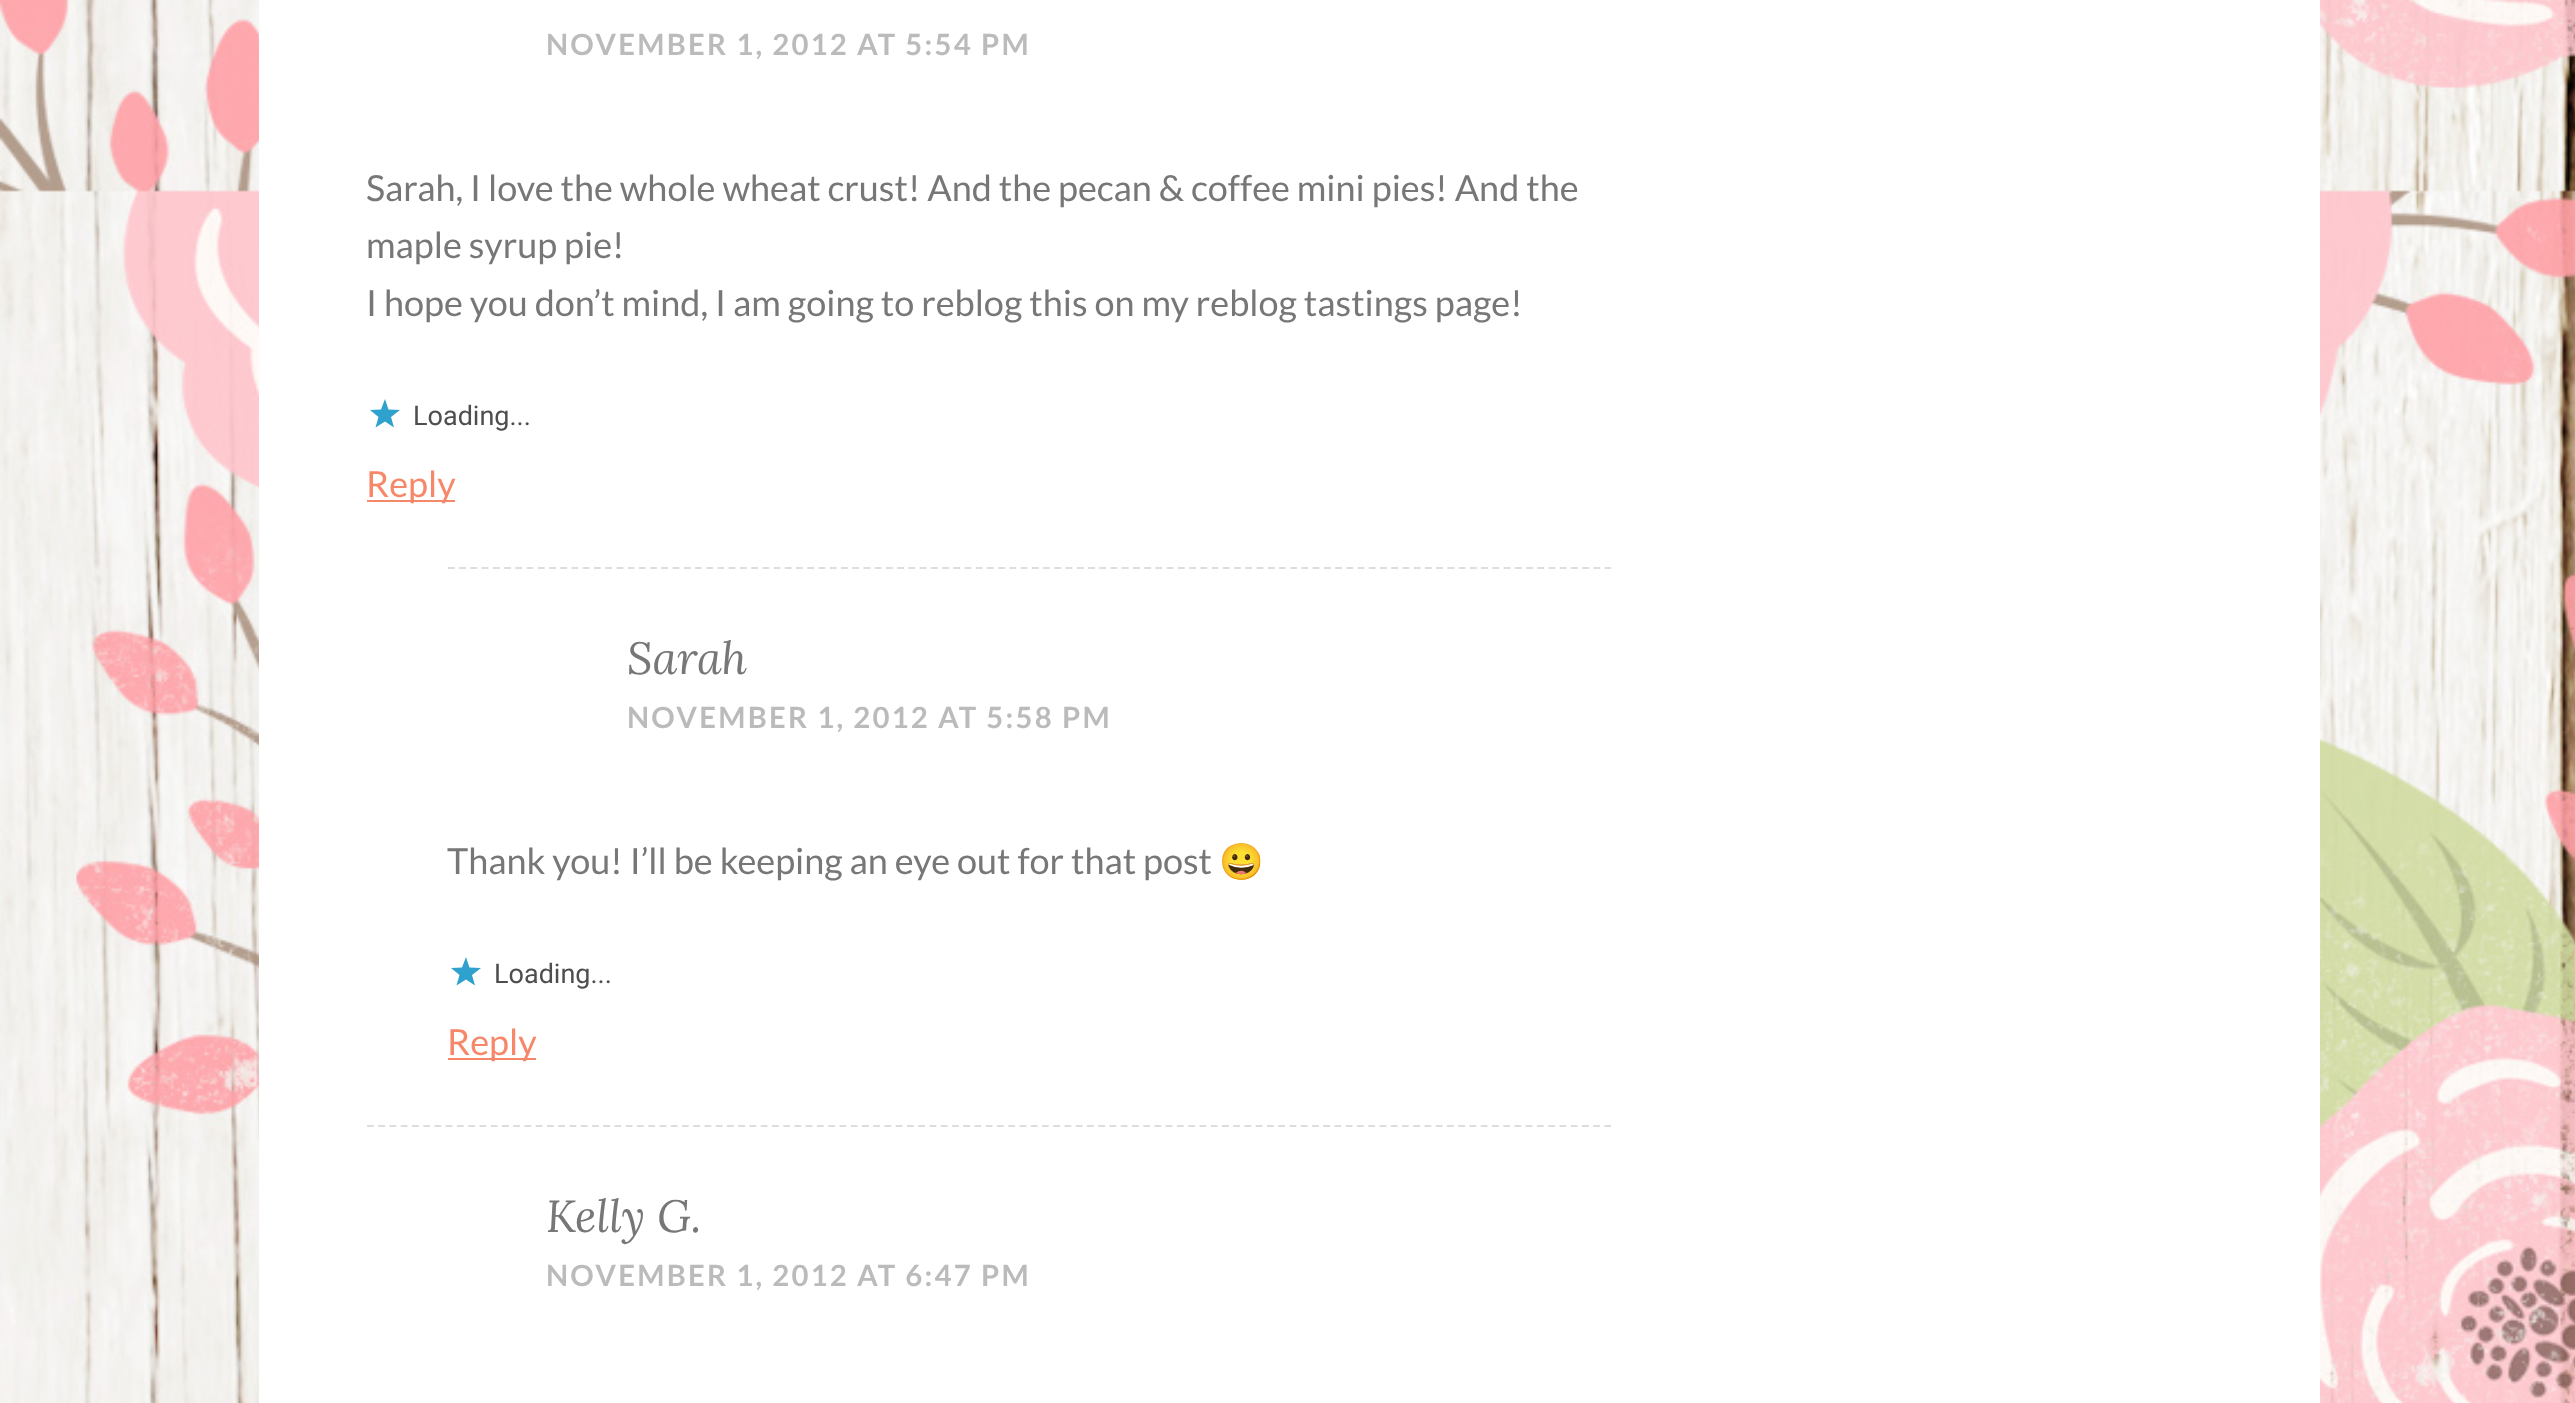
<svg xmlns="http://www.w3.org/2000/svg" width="2575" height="1403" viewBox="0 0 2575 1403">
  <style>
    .t1 { font: bold 29.25px Lato; letter-spacing: 2.25px; fill: #bbb; }
    .t2 { font: 36px Lato; fill: #777; }
    .t3 { font: 27px Roboto; fill: #4e4e4e; }
    .t4 { font: 36px Lato; fill: #f78769; }
    .t5 { font: italic 45px Lora; fill: #777; }
    .t6 { font: 36px Noto Color Emoji; fill: #777; }
  </style>
  <rect width="100%" height="100%" fill="#fff"/>
  <image x="0" y="0" width="2575" height="1403" href="images/1.png"/>
  <rect x="259" y="0" width="2061" height="1403" fill="#fff"/>
  <text x="546" y="55" class="t1">NOVEMBER 1, 2012 AT 5:54 PM</text>
  <text x="366" y="201" class="t2">Sarah, I love the whole wheat crust! And the pecan &amp; coffee mini pies! And the</text>
  <text x="366" y="258" class="t2">maple syrup pie!</text>
  <text x="366" y="316" class="t2">I hope you don’t mind, I am going to reblog this on my reblog tastings page!</text>
  <path d="M385 399L388.5 409.5L400 410L391 417L394 427.5L385 421.5L375.5 427.5L378.5 417L370 410L381 409.5" fill="#2ea2cc"/>
  <text x="413" y="425" class="t3">Loading...</text>
  <rect x="367" y="500" width="88" height="2" fill="#f78769"/>
  <text x="366" y="497" class="t4">Reply</text>
  <path d="M448 568H1611" fill="none" stroke="#ddd" stroke-width="2.2" stroke-dasharray="6.75 4.48"/>
  <text x="627" y="674" class="t5">Sarah</text>
  <text x="627" y="728" class="t1">NOVEMBER 1, 2012 AT 5:58 PM</text>
  <text x="447" y="874" class="t2">Thank you! I’ll be keeping an eye out for that post</text>
  <text x="1219" y="874" class="t6">😀</text>
  <path d="M466 957L469.5 967.5L481 968L472 975L475 985.5L466 979.5L456.5 985.5L459.5 975L451 968L462 967.5" fill="#2ea2cc"/>
  <text x="494" y="983" class="t3">Loading...</text>
  <rect x="448" y="1058" width="88" height="2" fill="#f78769"/>
  <text x="447" y="1055" class="t4">Reply</text>
  <path d="M367 1126H1611" fill="none" stroke="#ddd" stroke-width="2.2" stroke-dasharray="6.75 4.5"/>
  <text x="546" y="1232" class="t5">Kelly G.</text>
  <text x="546" y="1286" class="t1">NOVEMBER 1, 2012 AT 6:47 PM</text>
</svg>
